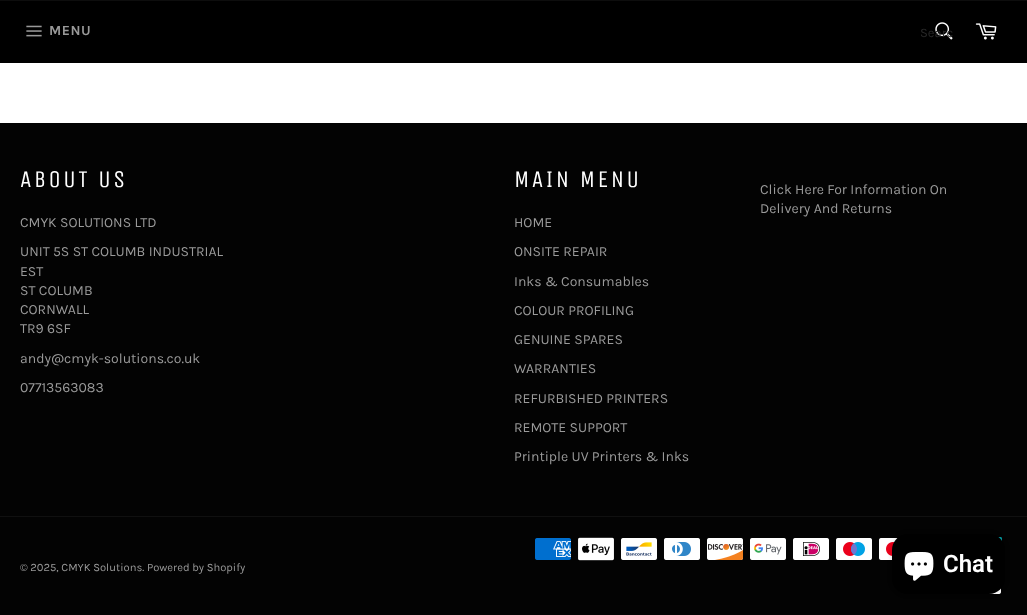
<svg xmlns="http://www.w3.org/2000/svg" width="1027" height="615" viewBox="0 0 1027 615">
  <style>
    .t1 { font: bold 14px Karla; letter-spacing: 0.5px; fill: #9a9a9a; }
    .t2 { font: 13px Karla; fill: #292929; }
    .t3 { font: 24px Unica One; letter-spacing: 2.5px; fill: #fff; }
    .t4 { font: 14px Karla; fill: #9a9a9a; }
    .t5 { font: 11.2px Karla; fill: #9a9a9a; }
    .t6 { font: 600 24px Roboto; fill: #fff; }
  </style>
  <rect width="100%" height="100%" fill="#fff"/>
  <rect x="0" y="1" width="1027" height="62" fill="#000"/>
  <rect x="0" y="0" width="1027" height="1" fill="#0d0d0d"/>
  <image x="26" y="25" width="16" height="12" href="images/1.png"/>
  <text x="49" y="35" class="t1">MENU</text>
  <image x="935" y="22" width="18" height="18" href="images/2.png"/>
  <text x="920" y="37" class="t2">Searc</text>
  <image x="975" y="23" width="22" height="17" href="images/3.png"/>
  <rect x="0" y="123" width="1027" height="492" fill="#030303"/>
  <text x="20" y="187" class="t3">ABOUT US</text>
  <text x="20" y="227" class="t4">CMYK SOLUTIONS LTD</text>
  <text x="20" y="256" class="t4">UNIT 5S ST COLUMB INDUSTRIAL</text>
  <text x="20" y="276" class="t4">EST</text>
  <text x="20" y="295" class="t4">ST COLUMB</text>
  <text x="20" y="314" class="t4">CORNWALL</text>
  <text x="20" y="333" class="t4">TR9 6SF</text>
  <text x="20" y="363" class="t4">andy@cmyk-solutions.co.uk</text>
  <text x="20" y="392" class="t4">07713563083</text>
  <text x="514" y="187" class="t3">MAIN MENU</text>
  <text x="514" y="227" class="t4">HOME</text>
  <text x="514" y="256" class="t4">ONSITE REPAIR</text>
  <text x="514" y="286" class="t4">Inks &amp; Consumables</text>
  <text x="514" y="315" class="t4">COLOUR PROFILING</text>
  <text x="514" y="344" class="t4">GENUINE SPARES</text>
  <text x="514" y="373" class="t4">WARRANTIES</text>
  <text x="514" y="403" class="t4">REFURBISHED PRINTERS</text>
  <text x="514" y="432" class="t4">REMOTE SUPPORT</text>
  <text x="514" y="461" class="t4">Printiple UV Printers &amp; Inks</text>
  <text x="760" y="194" class="t4">Click Here For Information On</text>
  <text x="760" y="213" class="t4">Delivery And Returns</text>
  <rect x="0" y="516" width="1027" height="1" fill="#101010"/>
  <text x="20" y="571" class="t5">© 2025, CMYK Solutions. Powered by Shopify</text>
  <image x="535" y="538" width="36" height="22" href="images/4.png"/>
  <image x="578" y="537" width="36" height="24" href="images/5.png"/>
  <image x="621" y="538" width="36" height="22" href="images/6.png"/>
  <image x="664" y="538" width="36" height="22" href="images/7.png"/>
  <image x="707" y="538" width="37" height="22" href="images/8.png"/>
  <image x="750" y="538" width="36" height="22" href="images/9.png"/>
  <image x="793" y="538" width="36" height="22" href="images/10.png"/>
  <image x="836" y="538" width="36" height="22" href="images/11.png"/>
  <image x="879" y="538" width="19" height="22" href="images/12.png"/>
  <image x="998" y="537" width="4" height="4" href="images/13.png"/>
  <image x="989" y="588" width="12" height="6" href="images/14.png"/>
  <rect x="892" y="534" width="113" height="60" rx="16" fill="#00000026" filter="blur(2.5px)"/>
  <rect x="892" y="534" width="113" height="60" rx="16" fill="#000"/>
  <image x="904" y="552" width="30" height="29" href="images/15.png"/>
  <text x="943" y="572" class="t6">Chat</text>
</svg>
